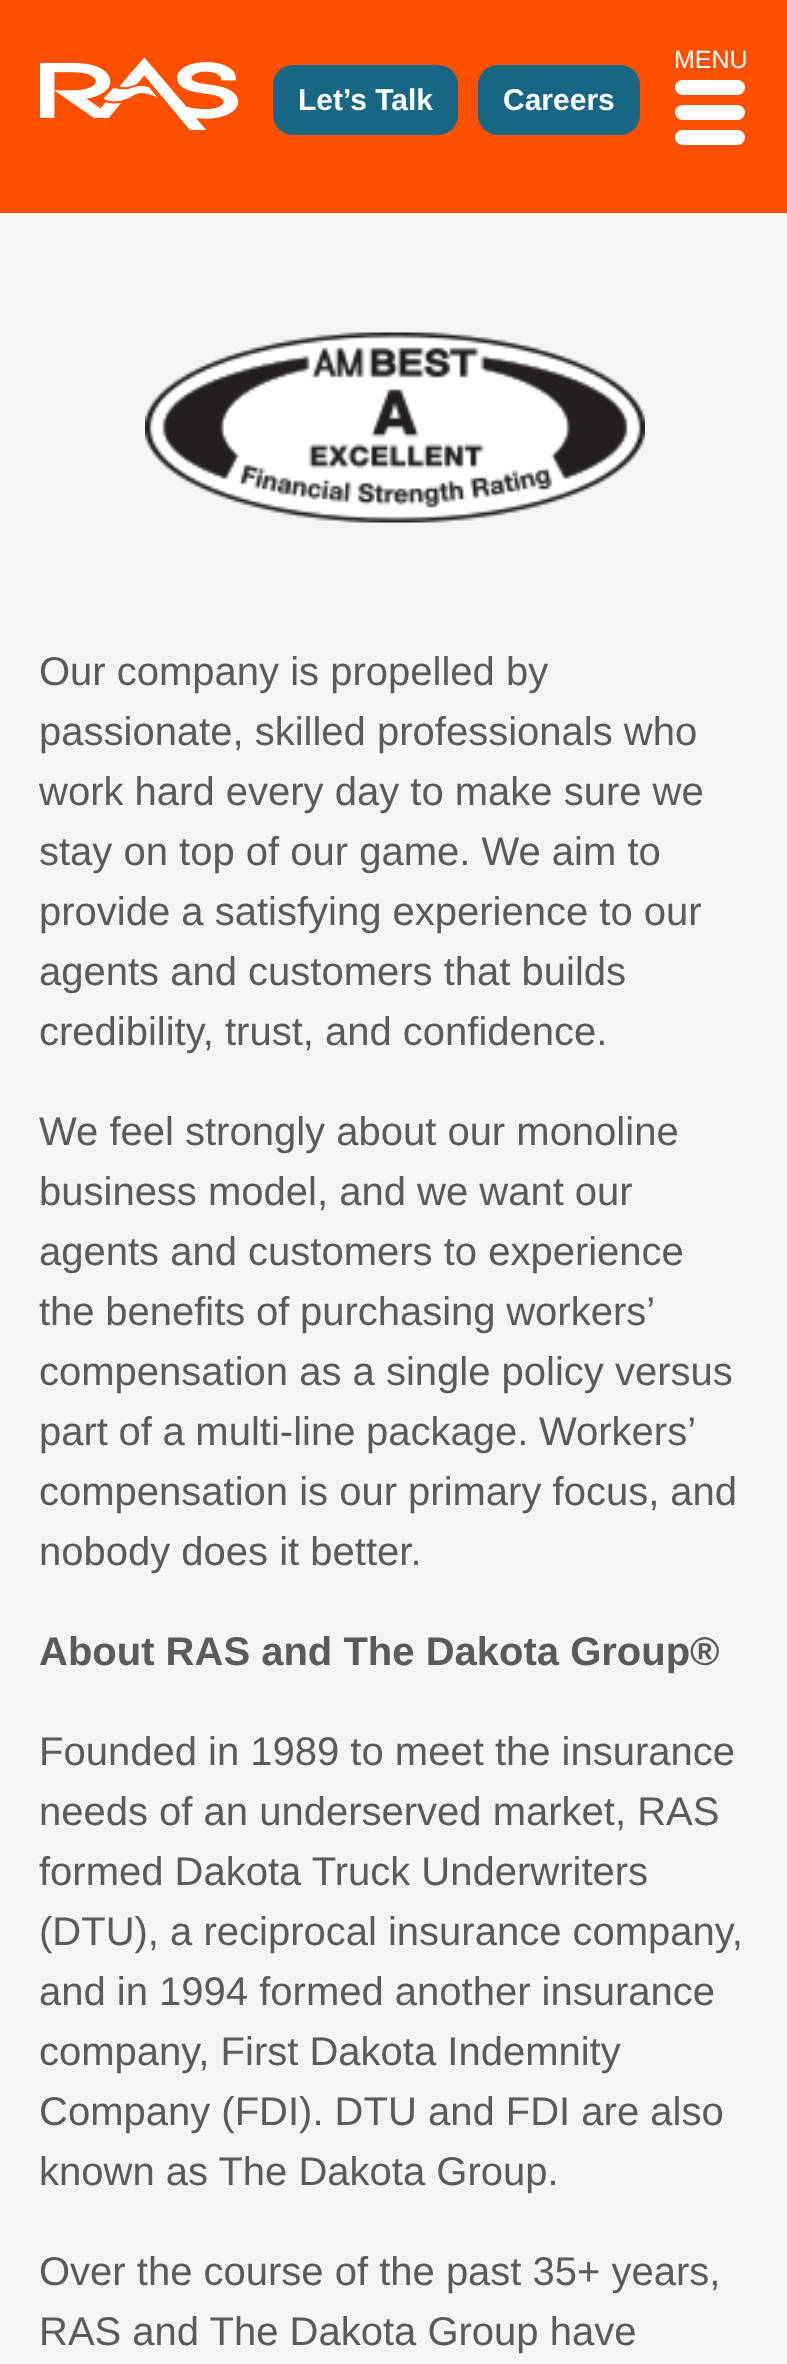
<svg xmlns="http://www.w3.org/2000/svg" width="787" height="2364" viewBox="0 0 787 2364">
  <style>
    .t1 { font: 25px Liberation Sans; fill: #fff; }
    .t2 { font: bold 30px Liberation Sans; fill: #fff; }
    .t3 { font: 40px Liberation Sans; fill: #5a5a59; }
    .t4 { font: bold 40px Liberation Sans; fill: #5a5a59; }
  </style>
  <rect width="100%" height="100%" fill="#f6f5f3"/>
  <rect x="0" y="0" width="787" height="213" fill="#fe5000"/>
  <image x="40" y="58" width="198" height="72" href="images/1.png"/>
  <text x="674" y="68" class="t1">MENU</text>
  <rect x="675" y="80" width="70" height="15" rx="7.5" fill="#fff"/>
  <rect x="675" y="105" width="70" height="15" rx="7.5" fill="#fff"/>
  <rect x="675" y="130" width="70" height="15" rx="7.5" fill="#fff"/>
  <rect x="273" y="65" width="185" height="70" rx="20" fill="#166684"/>
  <text x="298" y="110" class="t2">Let’s Talk</text>
  <rect x="478" y="65" width="162" height="70" rx="20" fill="#166684"/>
  <text x="503" y="110" class="t2">Careers</text>
  <image x="145" y="332" width="500" height="191" href="images/2.png"/>
  <text x="39" y="685" class="t3">Our company is propelled by</text>
  <text x="39" y="745" class="t3">passionate, skilled professionals who</text>
  <text x="39" y="805" class="t3">work hard every day to make sure we</text>
  <text x="39" y="865" class="t3">stay on top of our game. We aim to</text>
  <text x="39" y="925" class="t3">provide a satisfying experience to our</text>
  <text x="39" y="985" class="t3">agents and customers that builds</text>
  <text x="39" y="1045" class="t3">credibility, trust, and confidence.</text>
  <text x="39" y="1145" class="t3">We feel strongly about our monoline</text>
  <text x="39" y="1205" class="t3">business model, and we want our</text>
  <text x="39" y="1265" class="t3">agents and customers to experience</text>
  <text x="39" y="1325" word-spacing="-0.5" class="t3">the benefits of purchasing workers’</text>
  <text x="39" y="1385" class="t3">compensation as a single policy versus</text>
  <text x="39" y="1445" word-spacing="-0.5" class="t3">part of a multi-line package. Workers’</text>
  <text x="39" y="1505" class="t3">compensation is our primary focus, and</text>
  <text x="39" y="1565" class="t3">nobody does it better.</text>
  <text x="39" y="1665" class="t4">About RAS and The Dakota Group®</text>
  <text x="39" y="1765" class="t3">Founded in 1989 to meet the insurance</text>
  <text x="39" y="1825" class="t3">needs of an underserved market, RAS</text>
  <text x="39" y="1885" class="t3">formed Dakota Truck Underwriters</text>
  <text x="39" y="1945" class="t3">(DTU), a reciprocal insurance company,</text>
  <text x="39" y="2005" class="t3">and in 1994 formed another insurance</text>
  <text x="39" y="2065" class="t3">company, First Dakota Indemnity</text>
  <text x="39" y="2125" class="t3">Company (FDI). DTU and FDI are also</text>
  <text x="39" y="2185" class="t3">known as The Dakota Group.</text>
  <text x="39" y="2285" class="t3">Over the course of the past 35+ years,</text>
  <text x="39" y="2345" class="t3">RAS and The Dakota Group have</text>
</svg>
